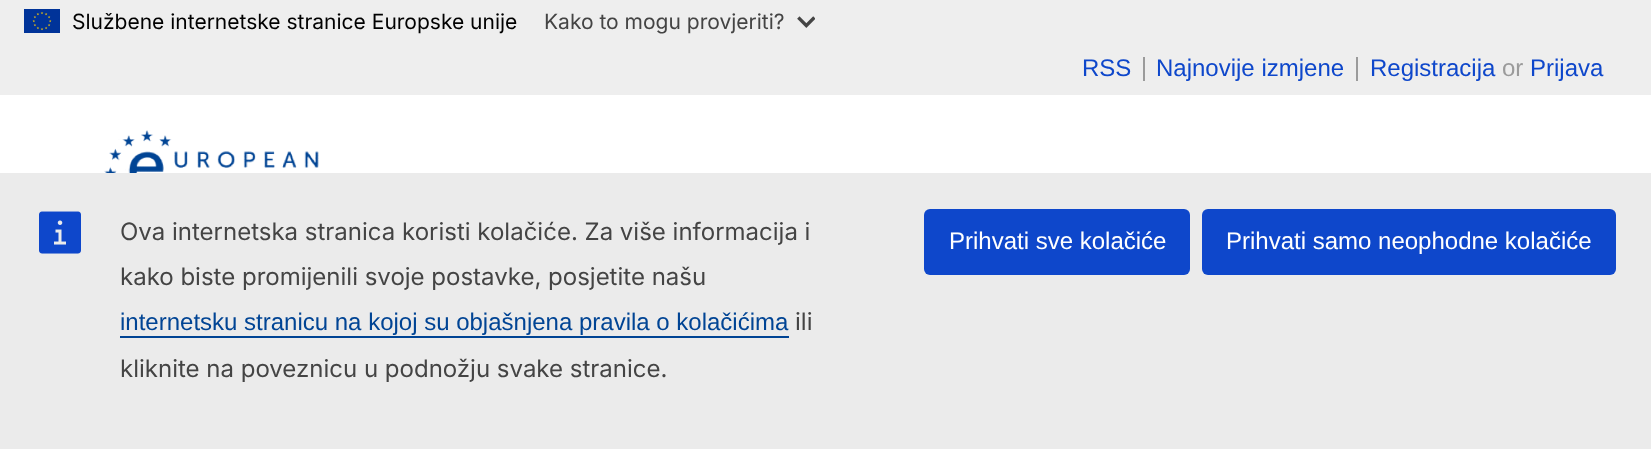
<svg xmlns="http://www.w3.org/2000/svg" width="1651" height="449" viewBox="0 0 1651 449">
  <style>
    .t1 { font: 21px Inter; fill: #000; }
    .t2 { font: 21px Inter; fill: #444; }
    .t3 { font: 24px Liberation Sans; fill: #0e47cb; }
    .t4 { font: 24px Liberation Sans; fill: #9b9b9b; }
    .t5 { font: 24px Inter; fill: #444; }
    .t6 { font: 24px Liberation Sans; fill: #004494; }
    .t7 { font: 24px Liberation Sans; fill: #fff; }
  </style>
  <rect width="100%" height="100%" fill="#fff"/>
  <rect x="0" y="0" width="1651" height="95" fill="#eee"/>
  <image x="24" y="9" width="36" height="24" href="images/1.png"/>
  <text x="72" y="29" class="t1">Službene internetske stranice Europske unije</text>
  <text x="544" y="29" class="t2">Kako to mogu provjeriti?</text>
  <image x="797" y="16" width="18" height="12" href="images/2.png"/>
  <rect x="1143" y="57" width="2" height="24" fill="#9b9b9b"/>
  <text x="1082" y="76" class="t3">RSS</text>
  <rect x="1356" y="57" width="2" height="24" fill="#9b9b9b"/>
  <text x="1156" y="76" class="t3">Najnovije izmjene</text>
  <text x="1370" y="76" class="t3">Registracija</text>
  <text x="1502" y="76" class="t4">or</text>
  <text x="1530" y="76" class="t3">Prijava</text>
  <image x="104" y="130" width="215" height="43" href="images/3.png"/>
  <rect x="0" y="173" width="1651" height="276" fill="#ebebeb"/>
  <image x="39" y="211" width="42" height="43" href="images/4.png"/>
  <text x="120" y="240" class="t5">Ova internetska stranica koristi kolačiće. Za više informacija i</text>
  <text x="120" y="285" class="t5">kako biste promijenili svoje postavke, posjetite našu</text>
  <text x="120" y="330" class="t6">internetsku stranicu na kojoj su objašnjena pravila o kolačićima</text>
  <rect x="120" y="336" width="669" height="2" fill="#004494"/>
  <text x="795" y="330" class="t5">ili</text>
  <text x="120" y="377" class="t5">kliknite na poveznicu u podnožju svake stranice.</text>
  <rect x="924" y="209" width="266" height="66" rx="6" fill="#0e47cb"/>
  <text x="949" y="249" class="t7">Prihvati sve kolačiće</text>
  <rect x="1202" y="209" width="414" height="66" rx="6" fill="#0e47cb"/>
  <text x="1226" y="249" class="t7">Prihvati samo neophodne kolačiće</text>
</svg>
